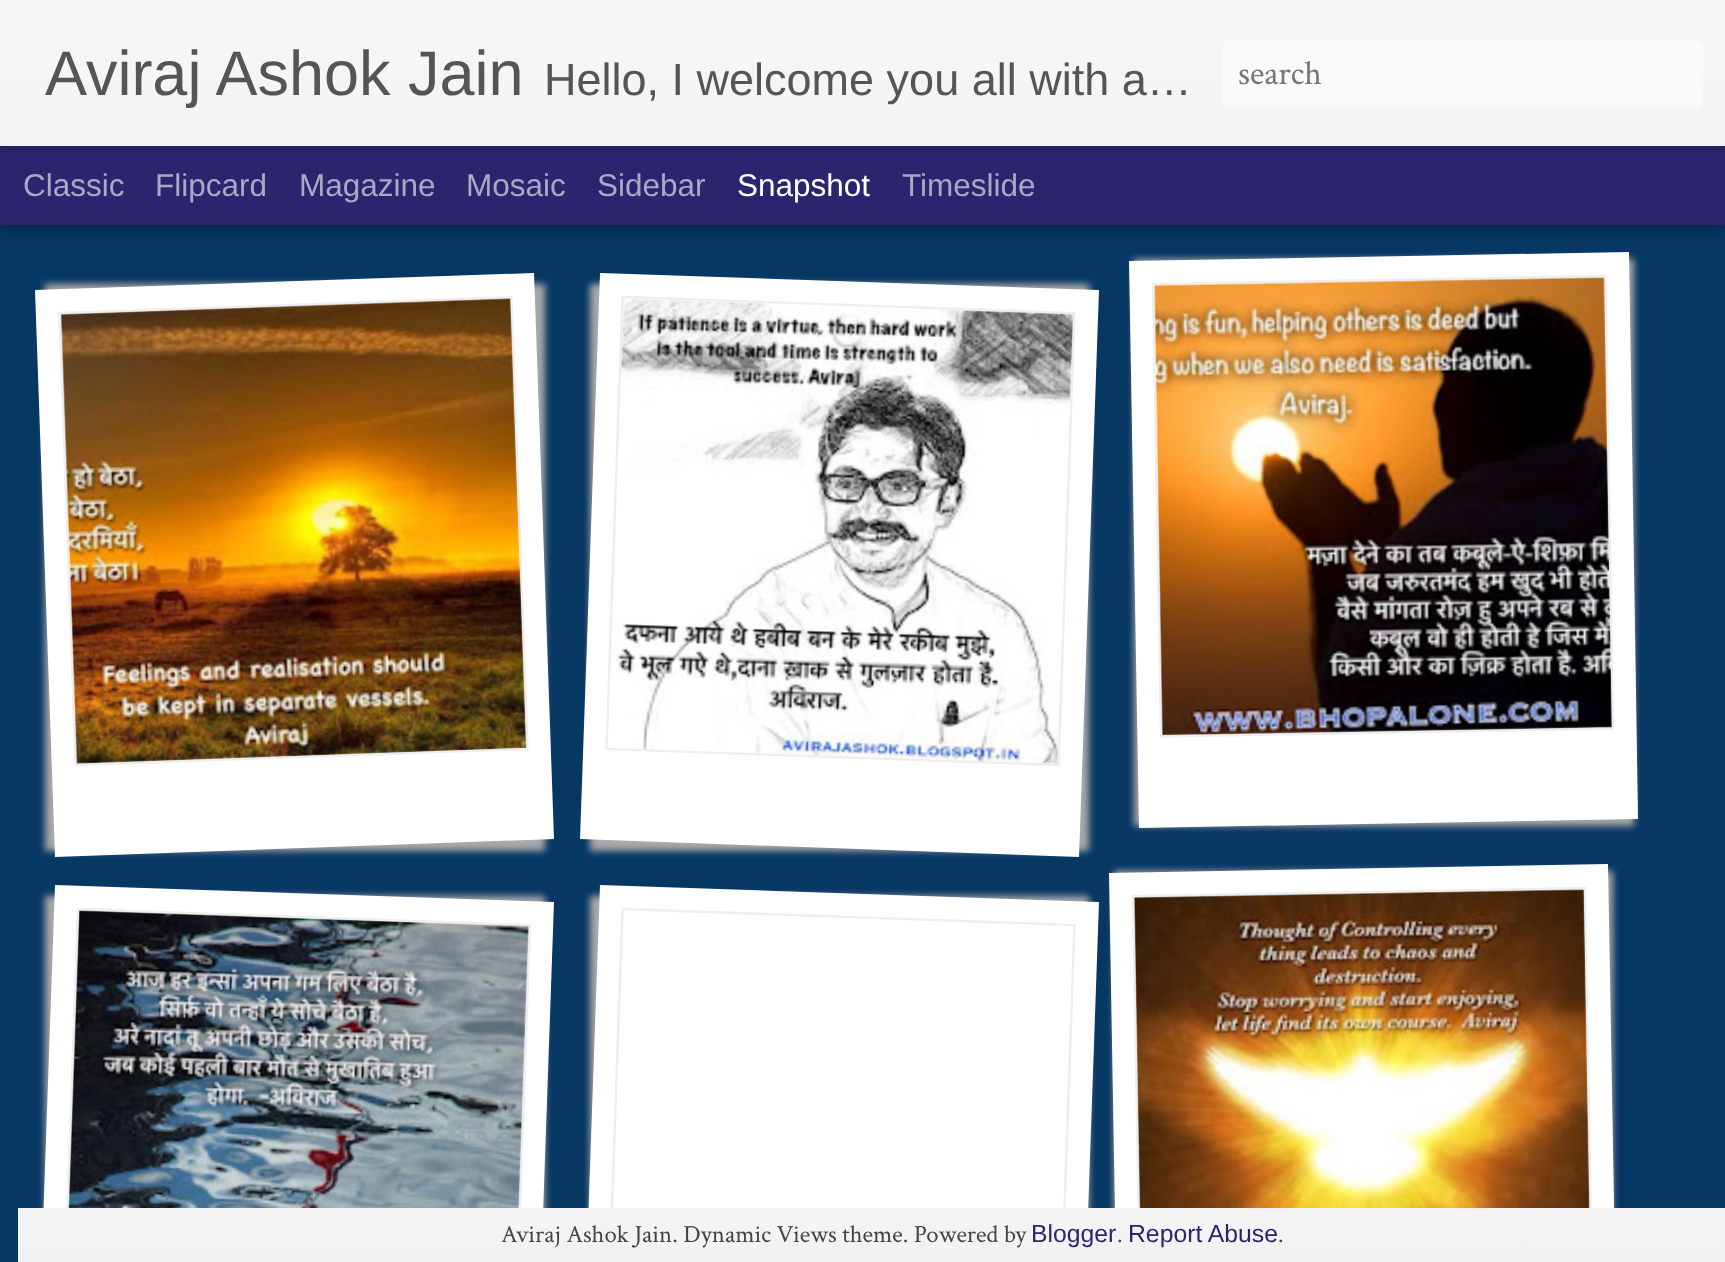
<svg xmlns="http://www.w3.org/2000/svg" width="1725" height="1262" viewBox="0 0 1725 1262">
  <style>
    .t1 { font: 63px Liberation Sans; fill: #555; }
    .t2 { font: 45px Liberation Sans; fill: #555; }
    .t3 { font: 34px Crimson Text; fill: #757575; }
    .t4 { font: 31.5px Liberation Sans; fill: #aaa8c5; }
    .t5 { font: 31.5px Liberation Sans; fill: #fff; }
    .t6 { font: 24.75px Crimson Text; fill: #444; }
    .t7 { font: 24.75px Liberation Sans; fill: #2b256f; }
  </style>
  <defs>
    <linearGradient id="g1" gradientUnits="userSpaceOnUse" x1="0" y1="0" x2="0" y2="146"><stop offset="0" stop-color="#f7f7f7"/><stop offset="1" stop-color="#f4f4f4"/></linearGradient>
    <linearGradient id="g2" gradientUnits="userSpaceOnUse" x1="892" y1="1208" x2="892" y2="1262"><stop offset="0" stop-color="#f5f5f5"/><stop offset="1" stop-color="#f1f1f1"/></linearGradient>
  </defs>
  <rect width="100%" height="100%" fill="#073763"/>
  <rect x="1134" y="259" width="500" height="567" fill="#aaa" filter="blur(3.5px)"/>
  <path d="M1129 261L1629 252L1638 819L1139 828Z" fill="#fff"/>
  <rect x="0" y="146" width="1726" height="79" fill="#00000080" filter="blur(9px)"/>
  <rect x="0" y="146" width="1725" height="79" fill="#2b256f"/>
  <rect x="0" y="0" width="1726" height="146" fill="#0000004d" filter="blur(5.5px)"/>
  <rect x="0" y="0" width="1725" height="146" fill="url(#g1)"/>
  <text x="45" y="95" class="t1">Aviraj Ashok Jain</text>
  <text x="544" y="95" class="t2">Hello, I welcome you all with a…</text>
  <rect x="1222" y="41" width="481" height="67" rx="7" fill="#fafafa"/>
  <text x="1238" y="84" class="t3">search</text>
  <text x="23" y="196" class="t4">Classic</text>
  <text x="155" y="196" class="t4">Flipcard</text>
  <text x="299" y="196" class="t4">Magazine</text>
  <text x="466" y="196" class="t4">Mosaic</text>
  <text x="597" y="196" class="t4">Sidebar</text>
  <text x="737" y="196" class="t5">Snapshot</text>
  <text x="902" y="196" class="t4">Timeslide</text>
  <rect x="45" y="284" width="500" height="567" fill="#aaa" filter="blur(3.5px)"/>
  <path d="M35 290L534 273L554 839L55 857Z" fill="#fff"/>
  <image x="60" y="298" width="467" height="466" href="images/1.png"/>
  <path d="M59.5 313L511.5 297L527.5 749L75.5 765Z" fill="none" stroke="#eee" stroke-width="2.3"/>
  <rect x="590" y="284" width="499" height="567" fill="#aaa" filter="blur(3.5px)"/>
  <path d="M600 273L1099 290L1079 857L580 839Z" fill="#fff"/>
  <image x="616" y="298" width="458" height="466" href="images/2.png"/>
  <path d="M622.5 297L1074.5 313L1058.5 765L606.5 749Z" fill="none" stroke="#eee" stroke-width="2.3"/>
  <image x="1154" y="277" width="458" height="459" href="images/3.png"/>
  <path d="M1153 284L1605.5 276L1613 728.5L1161 736.5Z" fill="none" stroke="#eee" stroke-width="2.3"/>
  <rect x="45" y="896" width="500" height="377" fill="#aaa" filter="blur(3.5px)"/>
  <path d="M55 885L554 902L534 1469L35 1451Z" fill="#fff"/>
  <image x="68" y="910" width="461" height="298" href="images/4.png"/>
  <path d="M78 909L530 925L514 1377L62 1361Z" fill="none" stroke="#eee" stroke-width="2.3"/>
  <rect x="590" y="896" width="499" height="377" fill="#aaa" filter="blur(3.5px)"/>
  <path d="M600 885L1099 902L1079 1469L580 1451Z" fill="#fff"/>
  <path d="M622.5 909L1074.5 925L1058.5 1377L606.5 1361Z" fill="none" stroke="#eee" stroke-width="2.3"/>
  <rect x="1114" y="871" width="499" height="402" fill="#aaa" filter="blur(3.5px)"/>
  <path d="M1109 873L1608 864L1618 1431L1119 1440Z" fill="#fff"/>
  <image x="1134" y="889" width="456" height="319" href="images/5.png"/>
  <path d="M1133 896L1585 888L1593 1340.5L1141 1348.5Z" fill="none" stroke="#eee" stroke-width="2.3"/>
  <rect x="18" y="1208" width="1707" height="54" fill="url(#g2)"/>
  <text x="501" y="1242" class="t6">Aviraj Ashok Jain. Dynamic Views theme. Powered by</text>
  <text x="1031" y="1242" class="t7">Blogger</text>
  <text x="1117" y="1242" class="t6">.</text>
  <text x="1128" y="1242" class="t7">Report Abuse</text>
  <text x="1278" y="1242" class="t6">.</text>
</svg>
